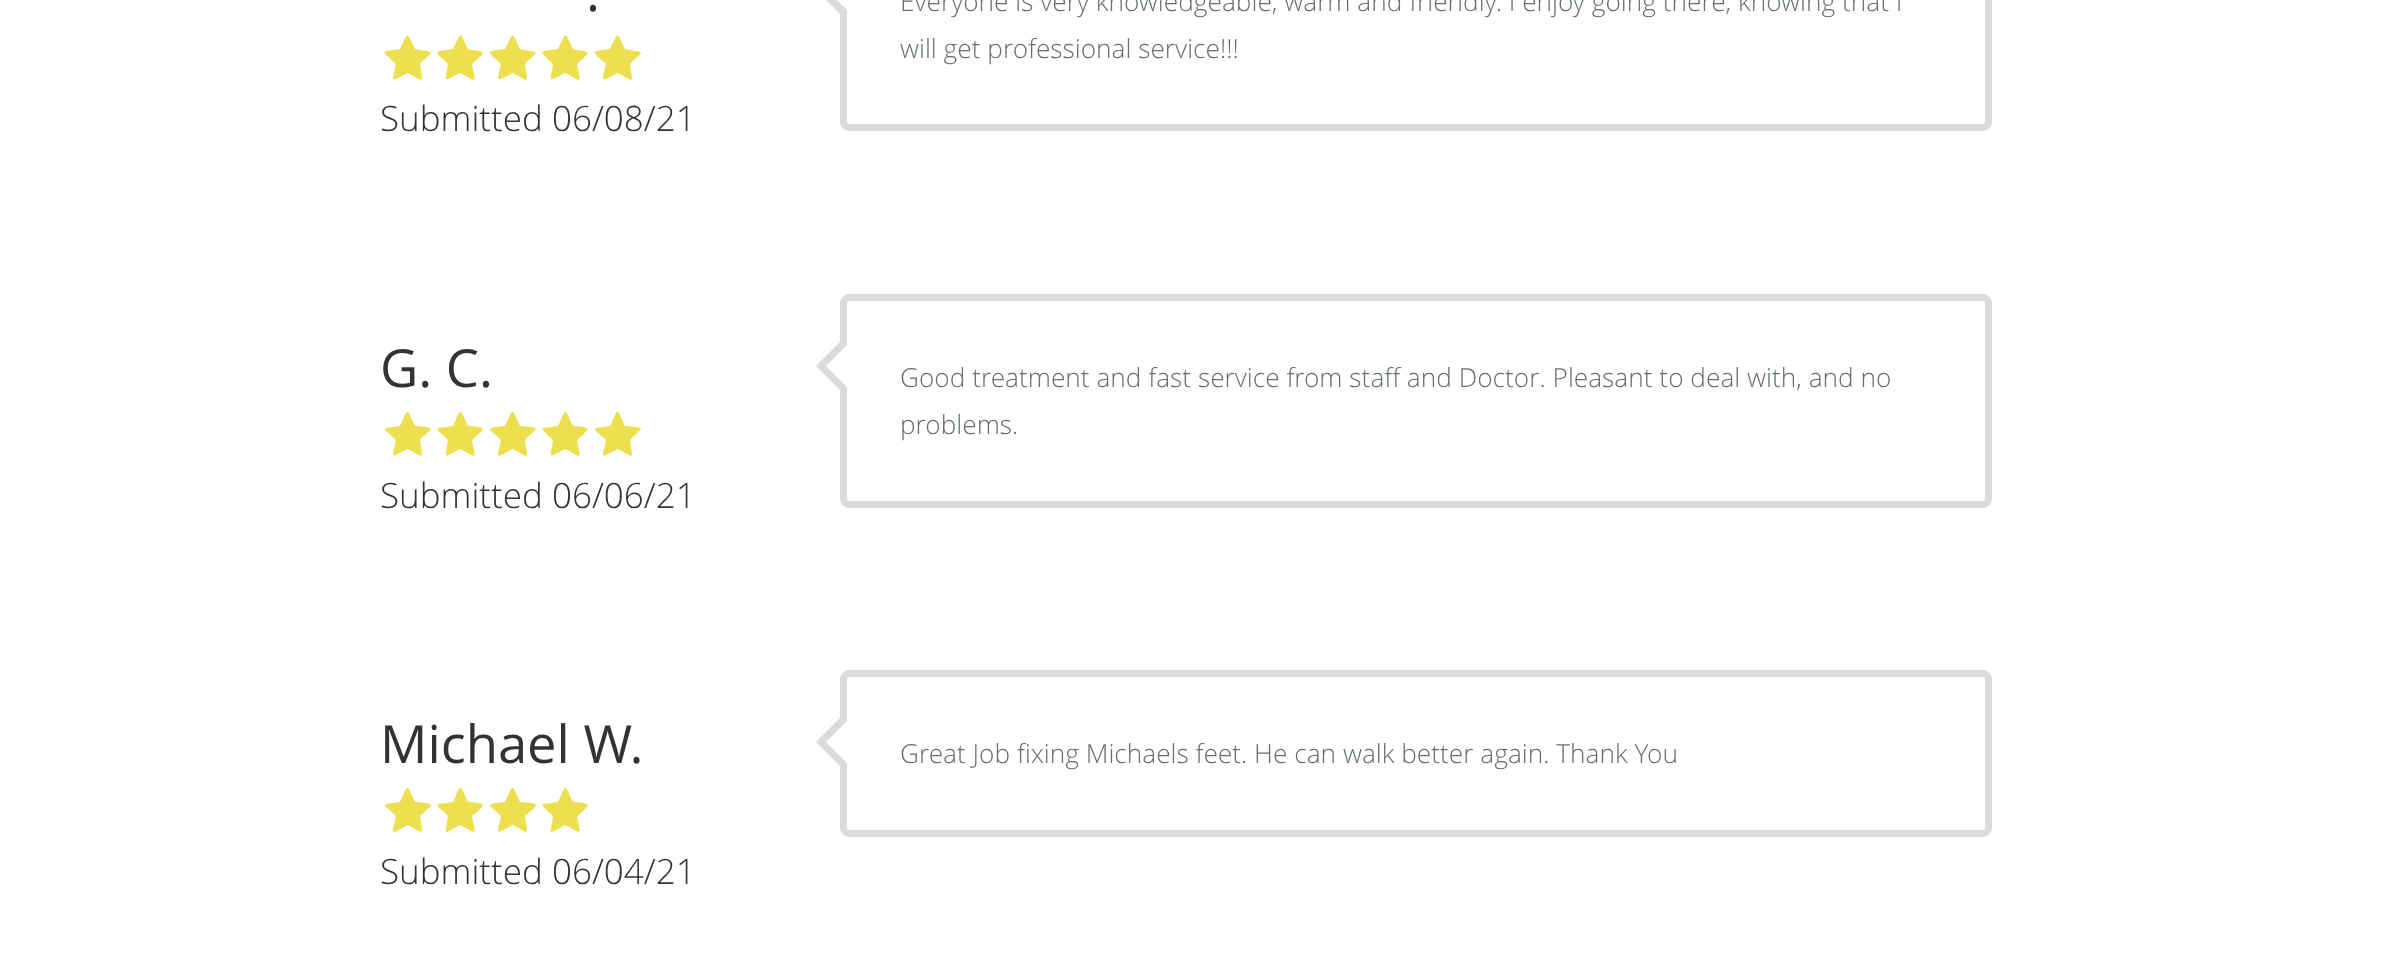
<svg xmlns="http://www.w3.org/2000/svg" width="2404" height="964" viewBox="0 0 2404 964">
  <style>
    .t1 { font: 52.5px Open Sans; fill: #333; }
    .t2 { font: 300 35px Open Sans; fill: #333; }
    .t3 { font: 300 26.25px Open Sans; fill: #656f72; }
  </style>
  <rect width="100%" height="100%" fill="#fff"/>
  <text x="586" y="11" class="t1">.</text>
  <path d="M431 53C431 51 418 50 415 49C406 31 409 31 400 49C380 52 381 50 396 64C392 83 389 82 408 73C425 82 423 85 420 64C421 62 431 54 431 53Z" fill="#eddf4e"/>
  <path d="M483 53C483 51 470 50 468 49C459 31 462 31 453 49C432 52 434 50 448 64C445 83 442 82 460 73C478 82 476 85 472 64C474 62 483 54 483 53Z" fill="#eddf4e"/>
  <path d="M536 53C536 51 523 50 520 49C511 31 514 31 505 49C485 52 486 50 501 64C497 83 494 82 513 73C530 82 528 85 525 64C526 62 536 54 536 53Z" fill="#eddf4e"/>
  <path d="M588 53C588 51 575 50 573 49C564 31 567 31 558 49C537 52 539 50 553 64C550 83 547 82 565 73C583 82 581 85 577 64C579 62 588 54 588 53Z" fill="#eddf4e"/>
  <path d="M641 53C641 51 628 50 625 49C616 31 619 31 610 49C590 52 591 50 606 64C602 83 599 82 618 73C635 82 633 85 630 64C631 62 641 54 641 53Z" fill="#eddf4e"/>
  <text x="380" y="131" class="t2">Submitted 06/08/21</text>
  <rect x="843.5" y="-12.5" width="1145" height="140" rx="5.5" fill="none" stroke="#dbdbdb" stroke-width="7"/>
  <path d="M842-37V16L816-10Z" fill="#dbdbdb"/>
  <path d="M847-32V10L826-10Z" fill="#fff"/>
  <text x="900" y="11" class="t3">Everyone is very knowledgeable, warm and friendly. I enjoy going there, knowing that I</text>
  <text x="900" y="58" class="t3">will get professional service!!!</text>
  <text x="380" y="387" class="t1">G. C.</text>
  <path d="M431 429C431 427 418 426 415 426C406 407 409 407 400 426C380 429 381 426 396 440C392 460 389 458 408 449C425 458 423 461 420 440C421 438 431 430 431 429Z" fill="#eddf4e"/>
  <path d="M483 429C483 427 470 426 468 426C459 407 462 407 453 426C432 429 434 426 448 440C445 460 442 458 460 449C478 458 476 461 472 440C474 438 483 430 483 429Z" fill="#eddf4e"/>
  <path d="M536 429C536 427 523 426 520 426C511 407 514 407 505 426C485 429 486 426 501 440C497 460 494 458 513 449C530 458 528 461 525 440C526 438 536 430 536 429Z" fill="#eddf4e"/>
  <path d="M588 429C588 427 575 426 573 426C564 407 567 407 558 426C537 429 539 426 553 440C550 460 547 458 565 449C583 458 581 461 577 440C579 438 588 430 588 429Z" fill="#eddf4e"/>
  <path d="M641 429C641 427 628 426 625 426C616 407 619 407 610 426C590 429 591 426 606 440C602 460 599 458 618 449C635 458 633 461 630 440C631 438 641 430 641 429Z" fill="#eddf4e"/>
  <text x="380" y="508" class="t2">Submitted 06/06/21</text>
  <rect x="843.5" y="297.5" width="1145" height="207" rx="5.5" fill="none" stroke="#dbdbdb" stroke-width="7"/>
  <path d="M842 340V392L816 366Z" fill="#dbdbdb"/>
  <path d="M847 345V387L826 366Z" fill="#fff"/>
  <text x="900" y="387" class="t3">Good treatment and fast service from staff and Doctor. Pleasant to deal with, and no</text>
  <text x="900" y="434" class="t3">problems.</text>
  <text x="380" y="763" class="t1">Michael W.</text>
  <path d="M431 805C431 803 418 802 415 802C406 783 409 783 400 802C380 805 381 802 396 816C392 836 389 835 408 825C425 834 423 837 420 816C421 815 431 807 431 805Z" fill="#eddf4e"/>
  <path d="M483 805C483 803 470 802 468 802C459 783 462 783 453 802C432 805 434 802 448 816C445 836 442 835 460 825C478 834 476 837 472 816C474 815 483 807 483 805Z" fill="#eddf4e"/>
  <path d="M536 805C536 803 523 802 520 802C511 783 514 783 505 802C485 805 486 802 501 816C497 836 494 835 513 825C530 834 528 837 525 816C526 815 536 807 536 805Z" fill="#eddf4e"/>
  <path d="M588 805C588 803 575 802 573 802C564 783 567 783 558 802C537 805 539 802 553 816C550 836 547 835 565 825C583 834 581 837 577 816C579 815 588 807 588 805Z" fill="#eddf4e"/>
  <text x="380" y="884" class="t2">Submitted 06/04/21</text>
  <rect x="843.5" y="673.5" width="1145" height="160" rx="5.5" fill="none" stroke="#dbdbdb" stroke-width="7"/>
  <path d="M842 716V768L816 742Z" fill="#dbdbdb"/>
  <path d="M847 721V763L826 742Z" fill="#fff"/>
  <text x="900" y="763" class="t3">Great Job fixing Michaels feet. He can walk better again. Thank You</text>
</svg>
